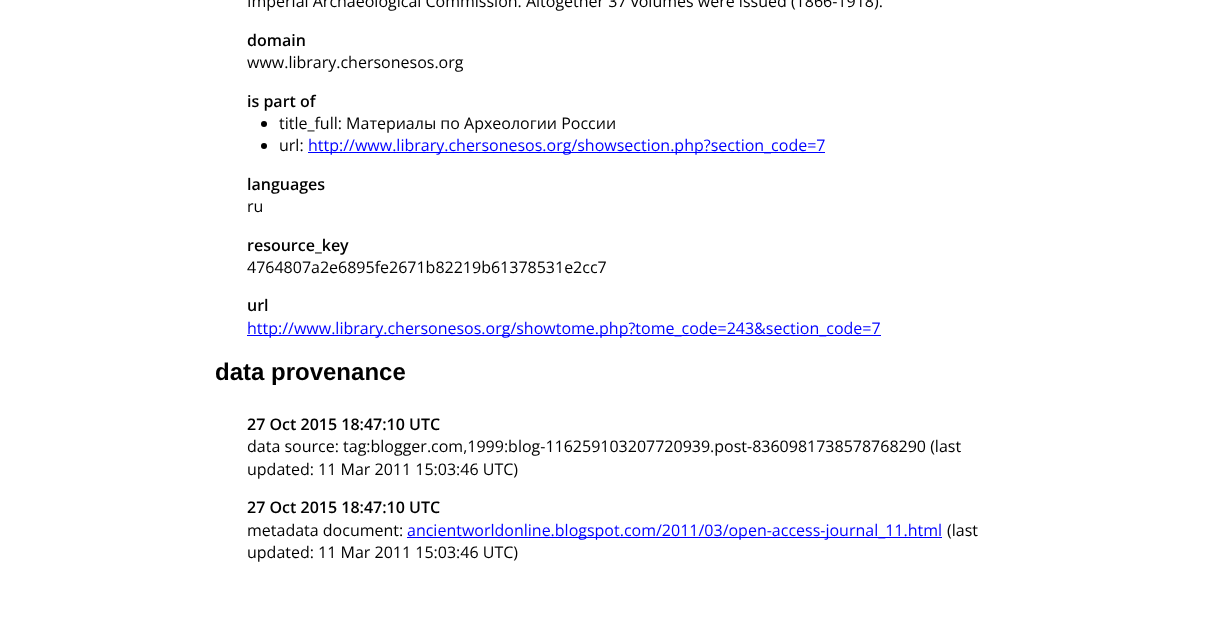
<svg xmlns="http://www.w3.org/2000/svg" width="1230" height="619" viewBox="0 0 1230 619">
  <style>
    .t1 { font: 16px Open Sans; fill: #000; }
    .t2 { font: 600 16px Open Sans; fill: #000; }
    .t3 { font: 16px Open Sans; fill: #00f; }
    .t4 { font: bold 24px Liberation Sans; fill: #000; }
  </style>
  <rect width="100%" height="100%" fill="#fff"/>
  <text x="247" y="7" class="t1">Imperial Archaeological Commission. Altogether 37 volumes were issued (1866-1918).</text>
  <text x="247" y="46" class="t2">domain</text>
  <text x="247" y="68" class="t1">www.library.chersonesos.org</text>
  <text x="247" y="107" class="t2">is part of</text>
  <circle cx="264" cy="124" r="3" fill="#000"/>
  <text x="279" y="129" class="t1">title_full: Материалы по Археологии России</text>
  <circle cx="264" cy="146" r="3" fill="#000"/>
  <text x="279" y="151" class="t1">url:</text>
  <rect x="308" y="152" width="517" height="1" fill="#00f"/>
  <text x="308" y="151" class="t3">http://www.library.chersonesos.org/showsection.php?section_code=7</text>
  <text x="247" y="190" class="t2">languages</text>
  <text x="247" y="212" class="t1">ru</text>
  <text x="247" y="251" class="t2">resource_key</text>
  <text x="247" y="273" class="t1">4764807a2e6895fe2671b82219b61378531e2cc7</text>
  <text x="247" y="311" class="t2">url</text>
  <rect x="247" y="335" width="634" height="1" fill="#00f"/>
  <text x="247" y="334" class="t3">http://www.library.chersonesos.org/showtome.php?tome_code=243&amp;section_code=7</text>
  <text x="215" y="380" class="t4">data provenance</text>
  <text x="247" y="430" class="t2">27 Oct 2015 18:47:10 UTC</text>
  <text x="247" y="452" class="t1">data source: tag:blogger.com,1999:blog-116259103207720939.post-8360981738578768290 (last</text>
  <text x="247" y="475" class="t1">updated: 11 Mar 2011 15:03:46 UTC)</text>
  <text x="247" y="513" class="t2">27 Oct 2015 18:47:10 UTC</text>
  <text x="247" y="536" class="t1">metadata document:</text>
  <rect x="407" y="537" width="535" height="1" fill="#00f"/>
  <text x="407" y="536" class="t3">ancientworldonline.blogspot.com/2011/03/open-access-journal_11.html</text>
  <text x="947" y="536" class="t1">(last</text>
  <text x="247" y="558" class="t1">updated: 11 Mar 2011 15:03:46 UTC)</text>
</svg>
